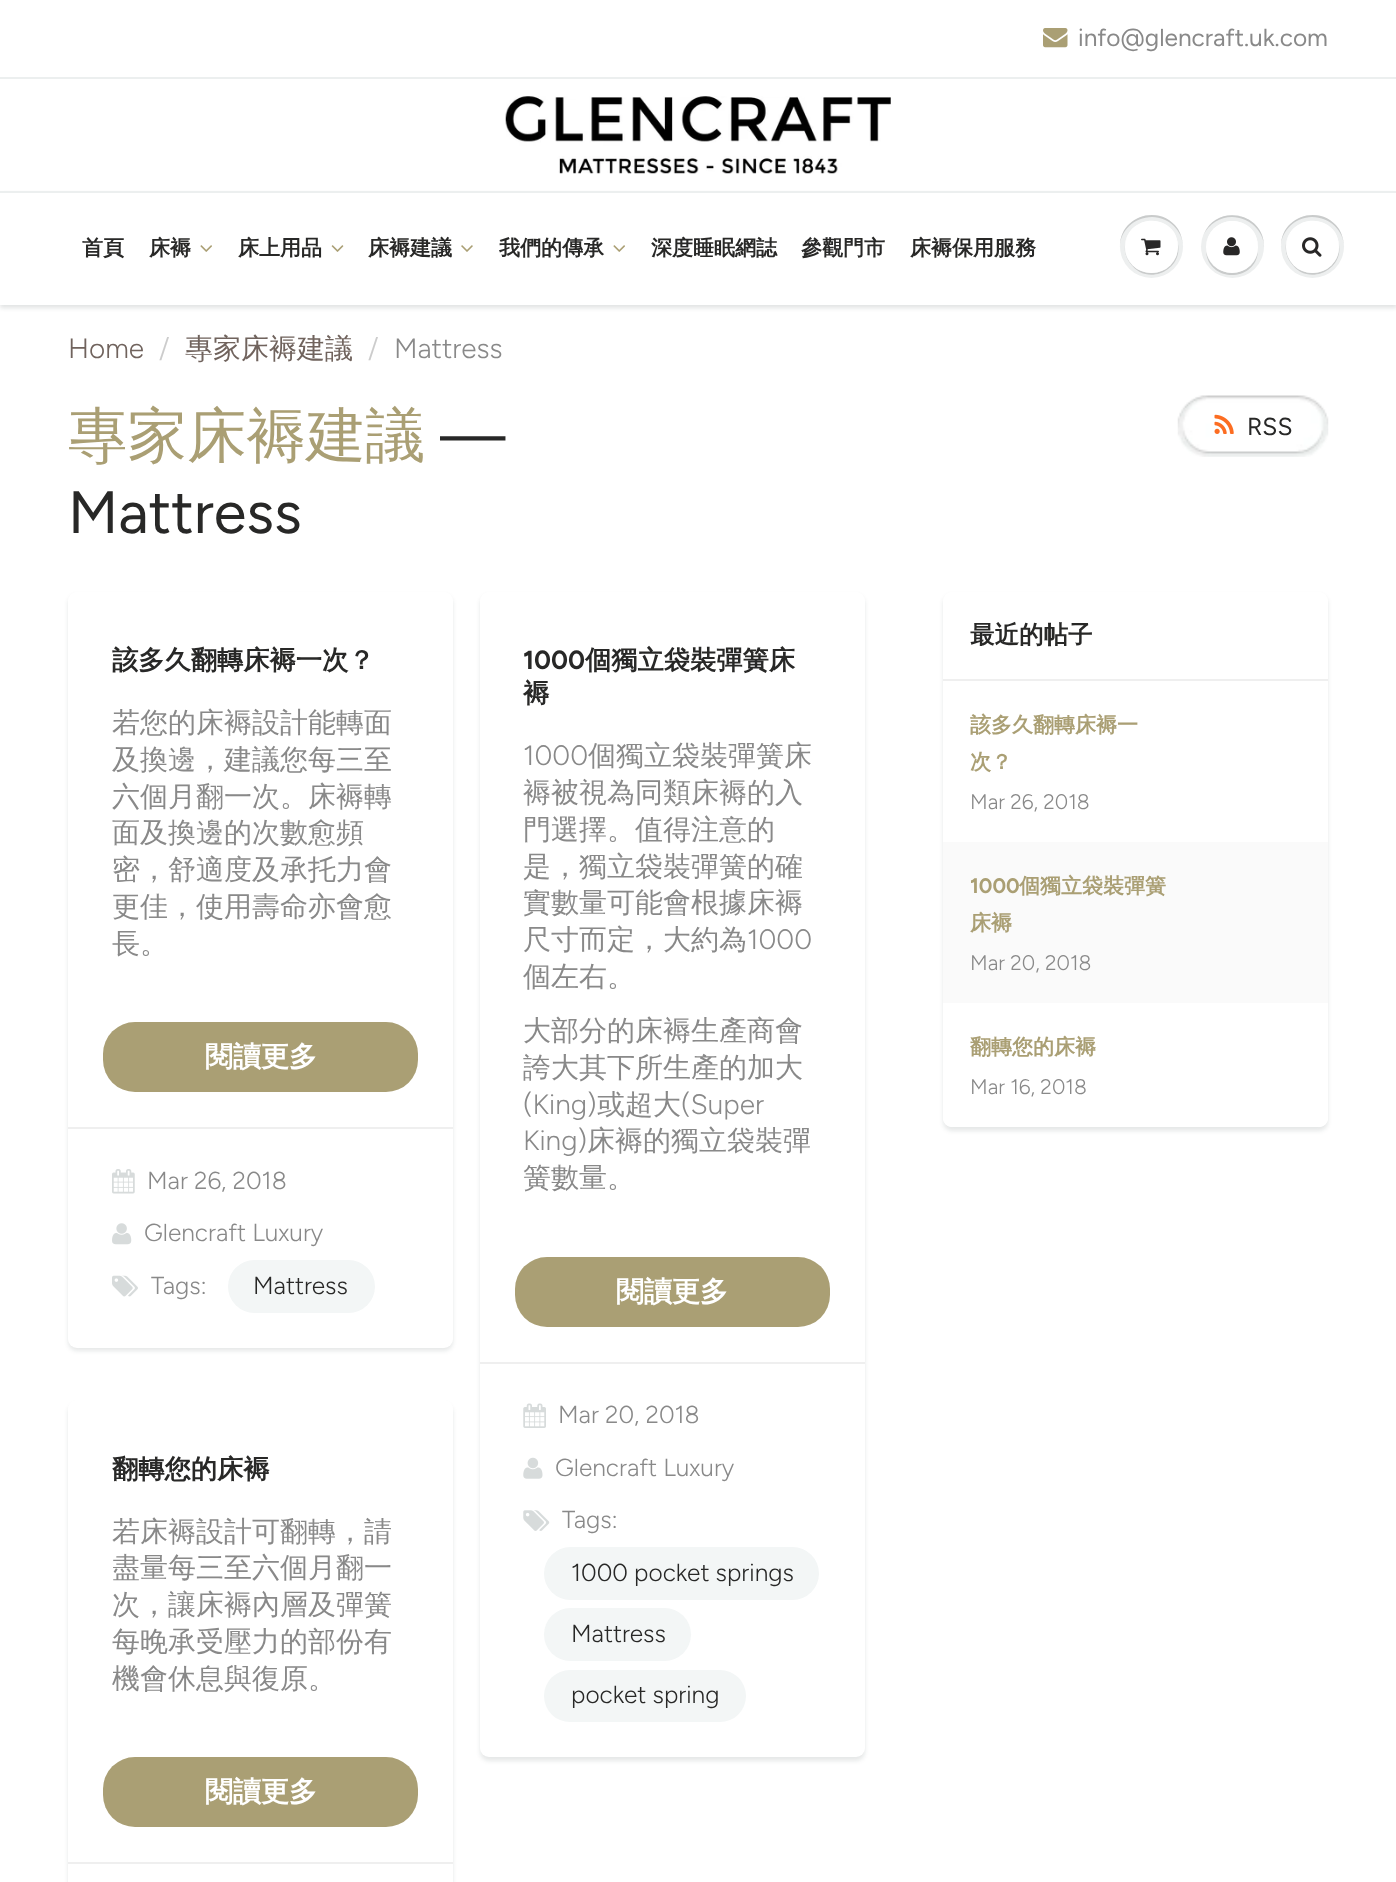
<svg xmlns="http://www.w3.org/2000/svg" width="1396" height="1882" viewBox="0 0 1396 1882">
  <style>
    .t1 { font: 24.5px Figtree; fill: #898989; }
    .t2 { font: bold 21px WenQuanYi Zen Hei; fill: #282827; }
    .t3 { font: 300 28px Figtree; fill: #70635d; }
    .t4 { font: 300 28px Figtree; fill: #ccc; }
    .t5 { font: 500 28px WenQuanYi Zen Hei; fill: #70635d; }
    .t6 { font: 300 28px Figtree; fill: #898989; }
    .t7 { font: 500 59.5px WenQuanYi Zen Hei; fill: #aa9f74; }
    .t8 { font: 59.5px Figtree; fill: #282827; }
    .t9 { font: 24.5px Figtree; fill: #282827; }
    .t10 { font: bold 26.25px WenQuanYi Zen Hei; fill: #282827; }
    .t11 { font: 500 28px WenQuanYi Zen Hei; fill: #898989; }
    .t12 { font: bold 28px WenQuanYi Zen Hei; fill: #fff; }
    .t13 { font: 300 24.5px Figtree; fill: #898989; }
    .t14 { font: 300 24.5px Figtree; fill: #282827; }
    .t15 { font: bold 26.25px Figtree; fill: #282827; }
    .t16 { font: bold 24.5px WenQuanYi Zen Hei; fill: #282827; }
    .t17 { font: bold 21px WenQuanYi Zen Hei; fill: #aa9f74; }
    .t18 { font: 300 21px Figtree; fill: #898989; }
    .t19 { font: bold 21px Figtree; fill: #aa9f74; }
  </style>
  <rect width="100%" height="100%" fill="#fff"/>
  <image x="1043" y="28" width="25" height="20" href="images/1.png"/>
  <text x="1078" y="46" class="t1">info@glencraft.uk.com</text>
  <rect x="0" y="77" width="1396" height="2" fill="#ecefef"/>
  <image x="505" y="96" width="386" height="78" href="images/2.png"/>
  <rect x="0" y="194" width="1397" height="114" fill="#0b191c1f" filter="blur(2px)"/>
  <rect x="0" y="193" width="1396" height="112" fill="#fff"/>
  <rect x="0" y="191" width="1396" height="2" fill="#ecefef"/>
  <text x="82" y="255" class="t2">首頁</text>
  <text x="149" y="255" class="t2">床褥</text>
  <image x="200" y="245" width="12" height="7" href="images/3.png"/>
  <text x="238" y="255" class="t2">床上用品</text>
  <image x="331" y="245" width="13" height="7" href="images/4.png"/>
  <text x="368" y="255" class="t2">床褥建議</text>
  <image x="461" y="245" width="12" height="7" href="images/5.png"/>
  <text x="499" y="255" class="t2">我們的傳承</text>
  <image x="613" y="245" width="12" height="7" href="images/3.png"/>
  <text x="651" y="255" class="t2">深度睡眠網誌</text>
  <text x="801" y="255" class="t2">參觀門市</text>
  <text x="910" y="255" class="t2">床褥保用服務</text>
  <circle cx="1151.5" cy="246.5" r="31.5" fill="#edefef"/>
  <path d="M1152 217C1169 217 1183 231 1183 247C1183 241 1181 234 1178 229C1160 203 1119 216 1120 247C1120 231 1134 217 1152 217Z" fill="#c9cbcb"/>
  <path d="M1125 244C1124 251 1126 258 1130 263C1146 287 1183 271 1178 244C1178 250 1177 256 1173 261C1158 284 1122 271 1125 244Z" fill="#c9cbcb"/>
  <rect x="1125" y="221" width="53" height="52" rx="26" fill="#fff"/>
  <path d="M1152 222C1166 222 1178 234 1178 248C1178 242 1177 237 1174 232C1159 211 1124 221 1125 248C1125 234 1137 222 1152 222Z" fill="#fff"/>
  <image x="1141" y="238" width="20" height="18" href="images/6.png"/>
  <circle cx="1232.5" cy="246.5" r="31.5" fill="#edefef"/>
  <path d="M1232 217C1249 217 1264 231 1264 247C1265 213 1217 203 1204 234C1209 224 1220 217 1232 217ZM1206 251C1208 283 1256 283 1258 251C1253 280 1211 280 1206 251Z" fill="#c9cbcb"/>
  <circle cx="1232" cy="247" r="26" fill="#fff"/>
  <path d="M1232 222C1246 222 1258 234 1258 248C1258 242 1257 237 1254 232C1239 211 1206 222 1206 248C1206 234 1218 222 1232 222Z" fill="#fff"/>
  <image x="1223" y="237" width="17" height="19" href="images/7.png"/>
  <circle cx="1312.5" cy="246.5" r="31.5" fill="#edefef"/>
  <path d="M1312 217C1330 217 1344 231 1344 247C1344 241 1342 234 1339 229C1321 203 1280 216 1281 247C1281 231 1295 217 1312 217Z" fill="#c9cbcb"/>
  <path d="M1286 244C1285 251 1287 258 1291 263C1307 287 1344 271 1339 244C1342 271 1306 284 1291 261C1287 256 1286 250 1286 244Z" fill="#c9cbcb"/>
  <rect x="1286" y="221" width="53" height="52" rx="26" fill="#fff"/>
  <path d="M1312 222C1327 222 1339 234 1339 248C1339 242 1338 237 1335 232C1320 211 1285 221 1286 248C1286 234 1298 222 1312 222Z" fill="#fff"/>
  <image x="1302" y="237" width="20" height="20" href="images/8.png"/>
  <text x="68" y="358" class="t3">Home</text>
  <text x="159" y="358" class="t4">/</text>
  <text x="185" y="358" class="t5">專家床褥建議</text>
  <text x="368" y="358" class="t4">/</text>
  <text x="394" y="358" class="t6">Mattress</text>
  <text x="68" y="456" class="t7">專家床褥建議</text>
  <text x="440" y="456" class="t8">—</text>
  <text x="68" y="533" class="t8">Mattress</text>
  <image x="1177" y="395" width="152" height="62" href="images/9.png"/>
  <image x="1214" y="414" width="20" height="20" href="images/10.png"/>
  <text x="1247" y="435" class="t9">RSS</text>
  <rect x="68" y="595" width="385" height="756" rx="9" fill="#0b191c1a" filter="blur(2px)"/>
  <rect x="68" y="592" width="385" height="756" rx="9" fill="#fff"/>
  <text x="112" y="669" class="t10">該多久翻轉床褥一次？</text>
  <text x="112" y="732" class="t11">若您的床褥設計能轉面</text>
  <text x="112" y="769" class="t11">及換邊，建議您每三至</text>
  <text x="112" y="806" class="t11">六個月翻一次。床褥轉</text>
  <text x="112" y="842" class="t11">面及換邊的次數愈頻</text>
  <text x="112" y="879" class="t11">密，舒適度及承托力會</text>
  <text x="112" y="916" class="t11">更佳，使用壽命亦會愈</text>
  <text x="112" y="953" class="t11">長。</text>
  <rect x="103" y="1022" width="315" height="70" rx="32" fill="#aa9f74"/>
  <text x="205" y="1066" class="t12">閱讀更多</text>
  <rect x="68" y="1127" width="385" height="2" fill="#efefef"/>
  <image x="112" y="1169" width="23" height="25" href="images/11.png"/>
  <text x="147" y="1189" class="t13">Mar 26, 2018</text>
  <image x="112" y="1223" width="20" height="22" href="images/12.png"/>
  <text x="144" y="1241" class="t13">Glencraft Luxury</text>
  <image x="112" y="1275" width="26" height="22" href="images/13.png"/>
  <text x="151" y="1294" class="t13">Tags:</text>
  <rect x="228" y="1260" width="147" height="53" rx="26.5" fill="#f3f6f6"/>
  <text x="253" y="1294" class="t14">Mattress</text>
  <rect x="480" y="595" width="385" height="1166" rx="9" fill="#0b191c1a" filter="blur(2px)"/>
  <rect x="480" y="592" width="385" height="1165" rx="9" fill="#fff"/>
  <text x="523" y="669" class="t15">1000</text>
  <text x="585" y="669" class="t10">個獨立袋裝彈簧床</text>
  <text x="523" y="702" class="t10">褥</text>
  <text x="523" y="765" class="t6">1000</text>
  <text x="588" y="765" class="t11">個獨立袋裝彈簧床</text>
  <text x="523" y="802" class="t11">褥被視為同類床褥的入</text>
  <text x="523" y="839" class="t11">門選擇。值得注意的</text>
  <text x="523" y="876" class="t11">是，獨立袋裝彈簧的確</text>
  <text x="523" y="912" class="t11">實數量可能會根據床褥</text>
  <text x="523" y="949" class="t11">尺寸而定，大約為</text>
  <text x="747" y="949" class="t6">1000</text>
  <text x="523" y="986" class="t11">個左右。</text>
  <text x="523" y="1040" class="t11">大部分的床褥生產商會</text>
  <text x="523" y="1077" class="t11">誇大其下所生產的加大</text>
  <text x="523" y="1114" class="t6">(King)</text>
  <text x="597" y="1114" class="t11">或超大</text>
  <text x="681" y="1114" class="t6">(Super</text>
  <text x="523" y="1150" class="t6">King)</text>
  <text x="587" y="1150" class="t11">床褥的獨立袋裝彈</text>
  <text x="523" y="1187" class="t11">簧數量。</text>
  <rect x="515" y="1257" width="315" height="70" rx="32" fill="#aa9f74"/>
  <text x="616" y="1301" class="t12">閱讀更多</text>
  <rect x="480" y="1362" width="385" height="2" fill="#efefef"/>
  <image x="523" y="1403" width="23" height="25" href="images/14.png"/>
  <text x="558" y="1423" class="t13">Mar 20, 2018</text>
  <image x="523" y="1457" width="20" height="22" href="images/15.png"/>
  <text x="555" y="1476" class="t13">Glencraft Luxury</text>
  <image x="523" y="1510" width="27" height="21" href="images/16.png"/>
  <text x="562" y="1528" class="t13">Tags:</text>
  <rect x="544" y="1547" width="275" height="53" rx="26.5" fill="#f3f6f6"/>
  <text x="571" y="1581" class="t14">1000 pocket springs</text>
  <rect x="544" y="1608" width="147" height="53" rx="26.5" fill="#f3f6f6"/>
  <text x="571" y="1642" class="t14">Mattress</text>
  <rect x="544" y="1670" width="202" height="52" rx="26" fill="#f3f6f6"/>
  <text x="571" y="1703" class="t14">pocket spring</text>
  <rect x="68" y="1404" width="385" height="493" rx="9" fill="#0b191c1a" filter="blur(2px)"/>
  <rect x="68" y="1400" width="385" height="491" rx="9" fill="#fff"/>
  <text x="112" y="1478" class="t10">翻轉您的床褥</text>
  <text x="112" y="1541" class="t11">若床褥設計可翻轉，請</text>
  <text x="112" y="1577" class="t11">盡量每三至六個月翻一</text>
  <text x="112" y="1614" class="t11">次，讓床褥內層及彈簧</text>
  <text x="112" y="1651" class="t11">每晚承受壓力的部份有</text>
  <text x="112" y="1688" class="t11">機會休息與復原。</text>
  <rect x="103" y="1757" width="315" height="70" rx="32" fill="#aa9f74"/>
  <text x="205" y="1801" class="t12">閱讀更多</text>
  <rect x="68" y="1862" width="385" height="2" fill="#efefef"/>
  <rect x="943" y="595" width="385" height="536" rx="9" fill="#0b191c1a" filter="blur(2px)"/>
  <rect x="943" y="592" width="385" height="535" rx="9" fill="#fff"/>
  <rect x="943" y="679" width="385" height="2" fill="#efefef"/>
  <text x="970" y="643" class="t16">最近的帖子</text>
  <text x="970" y="732" class="t17">該多久翻轉床褥一</text>
  <text x="970" y="769" class="t17">次？</text>
  <text x="970" y="809" class="t18">Mar 26, 2018</text>
  <rect x="943" y="842" width="385" height="161" fill="#fafafa"/>
  <text x="970" y="893" class="t19">1000</text>
  <text x="1019" y="893" class="t17">個獨立袋裝彈簧</text>
  <text x="970" y="930" class="t17">床褥</text>
  <text x="970" y="970" class="t18">Mar 20, 2018</text>
  <path d="M943 1003H1328V1118C1328 1123 1324 1127 1319 1127H952C947 1127 943 1123 943 1118Z" fill="#fff"/>
  <text x="970" y="1054" class="t17">翻轉您的床褥</text>
  <text x="970" y="1094" class="t18">Mar 16, 2018</text>
</svg>
